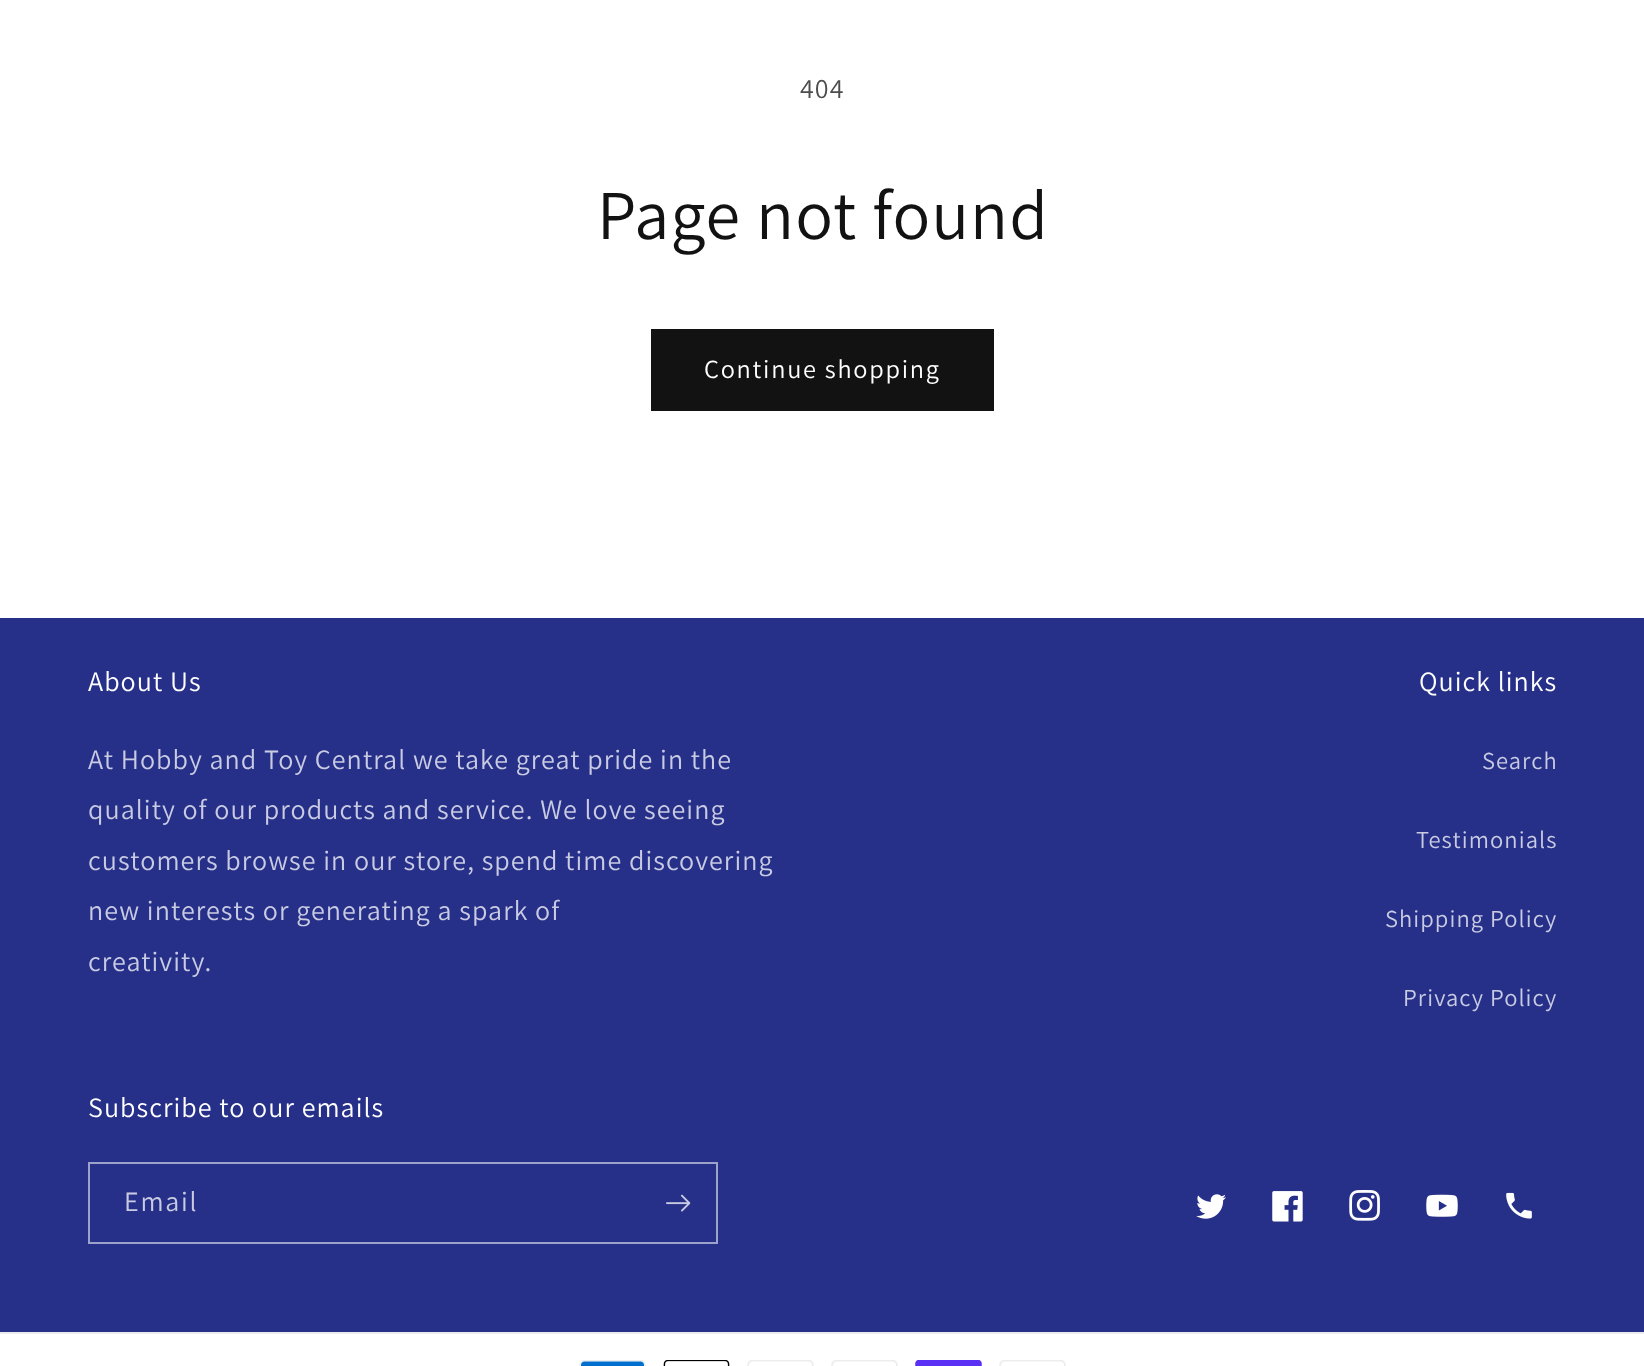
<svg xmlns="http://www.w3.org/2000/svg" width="1644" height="1366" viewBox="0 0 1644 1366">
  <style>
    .t1 { font: 28px Assistant; letter-spacing: 1.05px; fill: #4d4d4d; }
    .t2 { font: 70px Assistant; letter-spacing: 1.05px; fill: #121212; }
    .t3 { font: 26.25px Assistant; letter-spacing: 1.75px; fill: #fff; }
    .t4 { font: 28px Assistant; letter-spacing: 1.05px; fill: #fff; }
    .t5 { font: 28px Assistant; letter-spacing: 1.05px; fill: #c9cbe2; }
    .t6 { font: 24.5px Assistant; letter-spacing: 1.05px; fill: #c9cbe2; }
    .t7 { font: 28px Assistant; letter-spacing: 1.75px; fill: #c9cbe2; }
  </style>
  <rect width="100%" height="100%" fill="#fff"/>
  <text x="800" y="98" class="t1">404</text>
  <text x="597" y="239" class="t2">Page not found</text>
  <rect x="651" y="329" width="343" height="82" fill="#121212"/>
  <text x="704" y="378" class="t3">Continue shopping</text>
  <rect x="0" y="618" width="1644" height="714" fill="#263089"/>
  <text x="88" y="691" class="t4">About Us</text>
  <text x="88" y="769" class="t5">At Hobby and Toy Central we take great pride in the</text>
  <text x="88" y="819" class="t5">quality of our products and service. We love seeing</text>
  <text x="88" y="870" class="t5">customers browse in our store, spend time discovering</text>
  <text x="88" y="920" class="t5">new interests or generating a spark of</text>
  <text x="88" y="971" class="t5">creativity.</text>
  <text x="1419" y="691" class="t4">Quick links</text>
  <text x="1482" y="769" class="t6">Search</text>
  <text x="1416" y="848" class="t6">Testimonials</text>
  <text x="1385" y="927" class="t6">Shipping Policy</text>
  <text x="1403" y="1006" class="t6">Privacy Policy</text>
  <text x="88" y="1117" class="t4">Subscribe to our emails</text>
  <rect x="89" y="1163" width="628" height="80" fill="none" stroke="#9da2ca" stroke-width="2"/>
  <text x="124" y="1211" class="t7">Email</text>
  <image x="666" y="1194" width="25" height="18" href="images/1.png"/>
  <image x="1196" y="1194" width="30" height="25" href="images/2.png"/>
  <image x="1272" y="1191" width="31" height="31" href="images/3.png"/>
  <image x="1349" y="1190" width="31" height="31" href="images/4.png"/>
  <image x="1426" y="1194" width="32" height="23" href="images/5.png"/>
  <image x="1506" y="1192" width="26" height="27" href="images/6.png"/>
  <rect x="0" y="1332" width="1644" height="2" fill="#ececec"/>
  <image x="579" y="1360" width="67" height="6" href="images/7.png"/>
  <image x="663" y="1360" width="67" height="6" href="images/8.png"/>
  <image x="747" y="1360" width="67" height="6" href="images/9.png"/>
  <image x="831" y="1360" width="67" height="6" href="images/9.png"/>
  <image x="915" y="1360" width="67" height="6" href="images/10.png"/>
  <image x="999" y="1360" width="67" height="6" href="images/9.png"/>
</svg>
